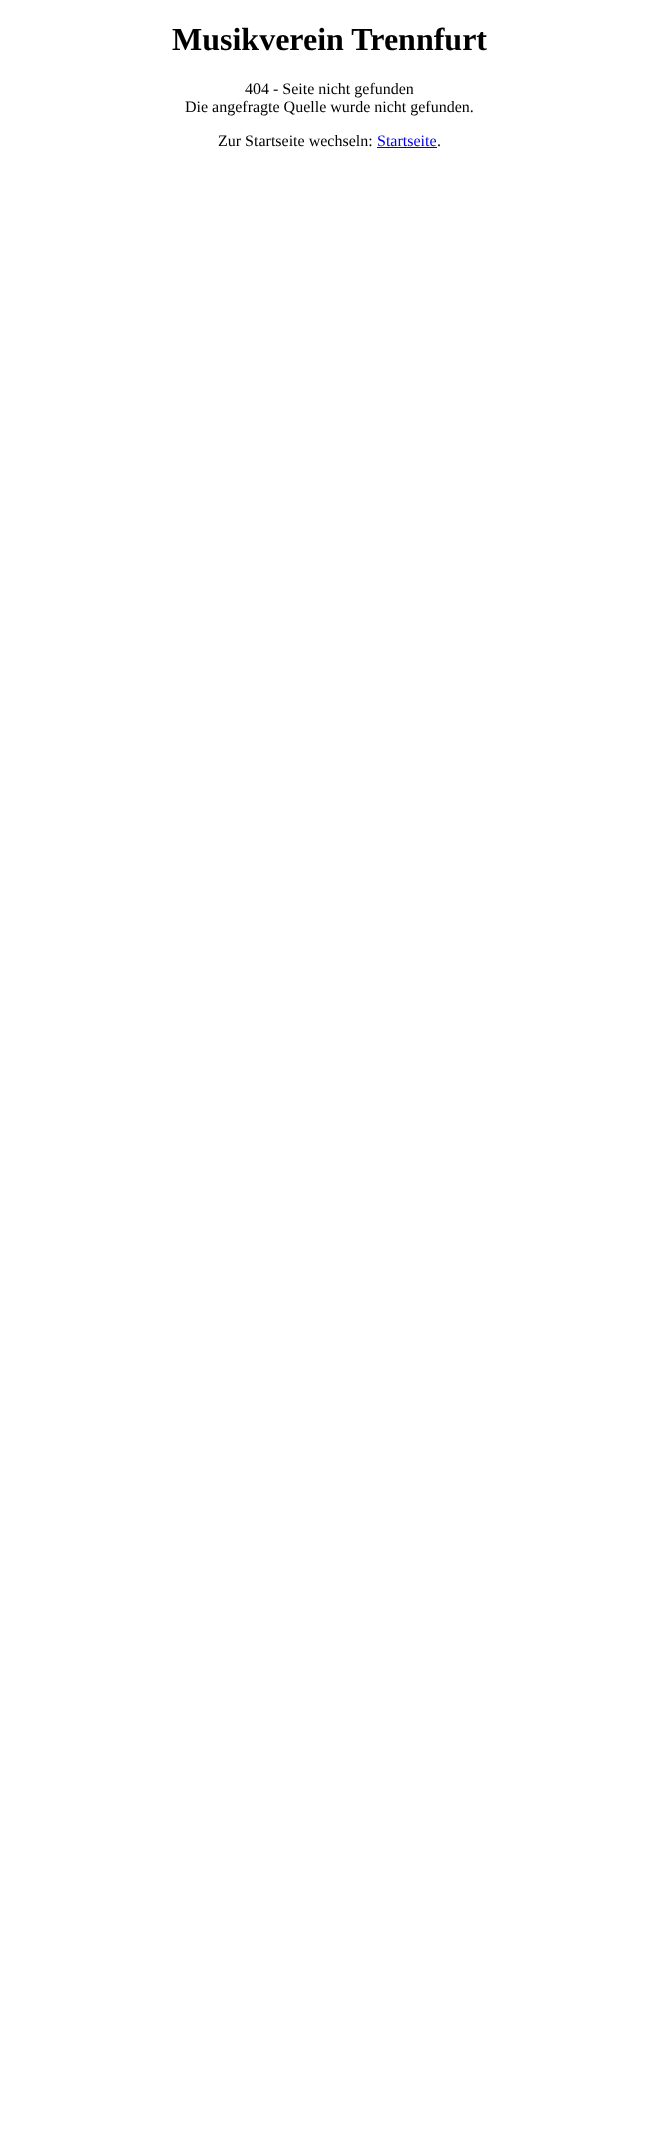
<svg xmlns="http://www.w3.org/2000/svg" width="659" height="2134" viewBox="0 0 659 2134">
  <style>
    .t1 { font: bold 32px Liberation Serif; fill: #000; }
    .t2 { font: 16px Liberation Serif; fill: #000; }
    .t3 { font: 16px Liberation Serif; fill: #00e; }
  </style>
  <rect width="100%" height="100%" fill="#fff"/>
  <text x="172" y="50" class="t1">Musikverein Trennfurt</text>
  <text x="245" y="94" class="t2">404 - Seite nicht gefunden</text>
  <text x="185" y="112" class="t2">Die angefragte Quelle wurde nicht gefunden.</text>
  <text x="218" y="146" class="t2">Zur Startseite wechseln:</text>
  <text x="377" y="146" class="t3">Startseite</text>
  <rect x="377" y="147" width="60" height="1" fill="#00e"/>
  <text x="437" y="146" class="t2">.</text>
</svg>
